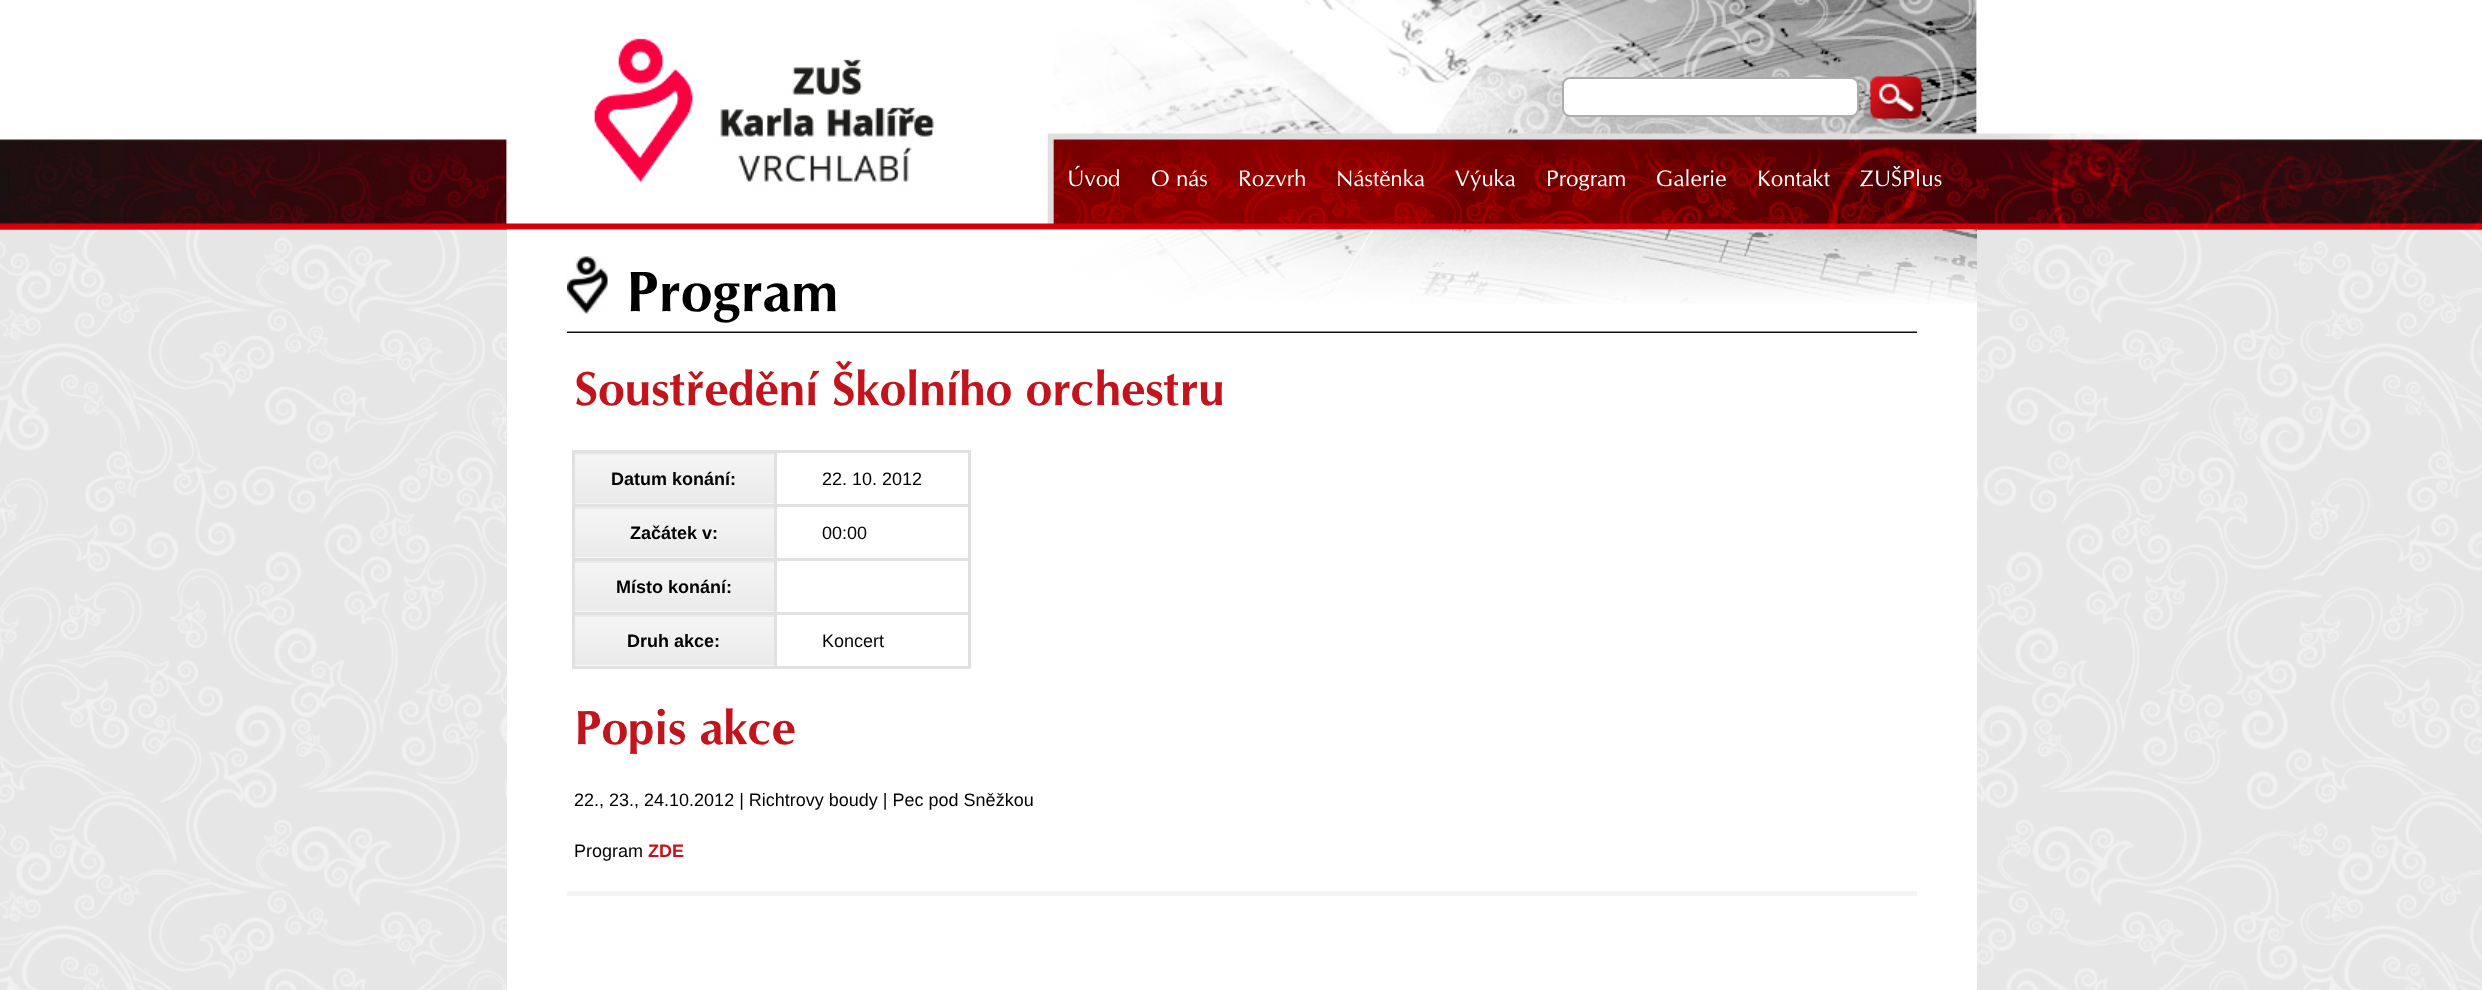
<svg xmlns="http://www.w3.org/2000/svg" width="2482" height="990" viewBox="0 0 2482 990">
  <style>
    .t1 { font: 22.5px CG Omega; fill: #fff; }
    .t2 { font: bold 57px CG Omega; fill: #000; }
    .t3 { font: bold 48px CG Omega; fill: #c1141c; }
    .t4 { font: bold 18px Liberation Sans; fill: #000; }
    .t5 { font: 18px Liberation Sans; fill: #000; }
    .t6 { font: bold 18px Liberation Sans; fill: #c1141c; }
  </style>
  <defs>
    <linearGradient id="g1" gradientUnits="userSpaceOnUse" x1="674" y1="407" x2="674" y2="455"><stop offset="0" stop-color="#f5f5f5"/><stop offset="1" stop-color="#eaeaea"/></linearGradient>
    <linearGradient id="g2" gradientUnits="userSpaceOnUse" x1="674" y1="455" x2="674" y2="503"><stop offset="0" stop-color="#f5f5f5"/><stop offset="1" stop-color="#eaeaea"/></linearGradient>
    <linearGradient id="g3" gradientUnits="userSpaceOnUse" x1="674" y1="503" x2="674" y2="551"><stop offset="0" stop-color="#f5f5f5"/><stop offset="1" stop-color="#eaeaea"/></linearGradient>
    <linearGradient id="g4" gradientUnits="userSpaceOnUse" x1="674" y1="461" x2="674" y2="509"><stop offset="0" stop-color="#f5f5f5"/><stop offset="1" stop-color="#eaeaea"/></linearGradient>
    <linearGradient id="g5" gradientUnits="userSpaceOnUse" x1="674" y1="557" x2="674" y2="605"><stop offset="0" stop-color="#f5f5f5"/><stop offset="1" stop-color="#eaeaea"/></linearGradient>
    <linearGradient id="g6" gradientUnits="userSpaceOnUse" x1="674" y1="515" x2="674" y2="563"><stop offset="0" stop-color="#f5f5f5"/><stop offset="1" stop-color="#eaeaea"/></linearGradient>
    <linearGradient id="g7" gradientUnits="userSpaceOnUse" x1="674" y1="611" x2="674" y2="659"><stop offset="0" stop-color="#f5f5f5"/><stop offset="1" stop-color="#eaeaea"/></linearGradient>
    <linearGradient id="g8" gradientUnits="userSpaceOnUse" x1="674" y1="569" x2="674" y2="617"><stop offset="0" stop-color="#f5f5f5"/><stop offset="1" stop-color="#eaeaea"/></linearGradient>
    <linearGradient id="g9" gradientUnits="userSpaceOnUse" x1="674" y1="665" x2="674" y2="713"><stop offset="0" stop-color="#f5f5f5"/><stop offset="1" stop-color="#eaeaea"/></linearGradient>
    <linearGradient id="g10" gradientUnits="userSpaceOnUse" x1="674" y1="509" x2="674" y2="557"><stop offset="0" stop-color="#f5f5f5"/><stop offset="1" stop-color="#eaeaea"/></linearGradient>
    <linearGradient id="g11" gradientUnits="userSpaceOnUse" x1="674" y1="563" x2="674" y2="611"><stop offset="0" stop-color="#f5f5f5"/><stop offset="1" stop-color="#eaeaea"/></linearGradient>
    <linearGradient id="g12" gradientUnits="userSpaceOnUse" x1="674" y1="617" x2="674" y2="665"><stop offset="0" stop-color="#f5f5f5"/><stop offset="1" stop-color="#eaeaea"/></linearGradient>
  </defs>
  <rect width="100%" height="100%" fill="#fff"/>
  <image x="0" y="229" width="2482" height="761" href="images/1.png"/>
  <image x="0" y="229" width="2482" height="1" href="images/2.png"/>
  <image x="0" y="0" width="2482" height="230" href="images/3.png"/>
  <rect x="1563" y="78" width="295" height="38" rx="7" fill="#fff" stroke="#acacac" stroke-width="2"/>
  <image x="1870" y="76" width="52" height="43" href="images/4.png"/>
  <text x="1067" y="186" class="t1">Úvod</text>
  <text x="1151" y="186" class="t1">O nás</text>
  <text x="1238" y="186" class="t1">Rozvrh</text>
  <text x="1336" y="186" class="t1">Nástěnka</text>
  <text x="1455" y="186" class="t1">Výuka</text>
  <text x="1546" y="186" class="t1">Program</text>
  <text x="1656" y="186" class="t1">Galerie</text>
  <text x="1757" y="186" class="t1">Kontakt</text>
  <text x="1860" y="186" class="t1">ZUŠPlus</text>
  <rect x="507" y="304" width="1470" height="686" fill="#fff"/>
  <image x="507" y="229" width="1470" height="75" href="images/5.png"/>
  <image x="567" y="256" width="1350" height="77" href="images/6.png"/>
  <text x="626" y="311" class="t2">Program</text>
  <text x="574" y="405" class="t3">Soustředění Školního orchestru</text>
  <rect x="573" y="453" width="203" height="2" fill="url(#g1)"/>
  <rect x="575" y="455" width="199" height="48" fill="url(#g2)"/>
  <rect x="573" y="503" width="203" height="1" fill="url(#g3)"/>
  <rect x="774" y="450" width="197" height="3" fill="#e1e1e1"/>
  <rect x="774" y="504" width="197" height="3" fill="#e1e1e1"/>
  <rect x="573" y="507" width="203" height="2" fill="url(#g4)"/>
  <rect x="573" y="557" width="203" height="1" fill="url(#g5)"/>
  <rect x="774" y="558" width="197" height="3" fill="#e1e1e1"/>
  <rect x="573" y="561" width="203" height="2" fill="url(#g6)"/>
  <rect x="573" y="611" width="203" height="1" fill="url(#g7)"/>
  <rect x="774" y="612" width="197" height="3" fill="#e1e1e1"/>
  <rect x="573" y="615" width="203" height="2" fill="url(#g8)"/>
  <rect x="573" y="665" width="203" height="1" fill="url(#g9)"/>
  <rect x="968" y="612" width="3" height="57" fill="#e1e1e1"/>
  <rect x="774" y="666" width="197" height="3" fill="#e1e1e1"/>
  <rect x="774" y="612" width="3" height="57" fill="#e1e1e1"/>
  <rect x="572" y="612" width="205" height="3" fill="#e1e1e1"/>
  <rect x="774" y="558" width="3" height="57" fill="#e1e1e1"/>
  <rect x="572" y="558" width="205" height="3" fill="#e1e1e1"/>
  <rect x="774" y="504" width="3" height="57" fill="#e1e1e1"/>
  <rect x="572" y="504" width="205" height="3" fill="#e1e1e1"/>
  <rect x="774" y="450" width="3" height="57" fill="#e1e1e1"/>
  <rect x="572" y="450" width="205" height="3" fill="#e1e1e1"/>
  <rect x="572" y="666" width="205" height="3" fill="#e1e1e1"/>
  <rect x="572" y="612" width="3" height="57" fill="#e1e1e1"/>
  <rect x="572" y="558" width="3" height="57" fill="#e1e1e1"/>
  <rect x="572" y="504" width="3" height="57" fill="#e1e1e1"/>
  <rect x="572" y="450" width="3" height="57" fill="#e1e1e1"/>
  <text x="611" y="485" class="t4">Datum konání:</text>
  <rect x="968" y="558" width="3" height="57" fill="#e1e1e1"/>
  <rect x="968" y="504" width="3" height="57" fill="#e1e1e1"/>
  <rect x="968" y="450" width="3" height="57" fill="#e1e1e1"/>
  <text x="822" y="485" class="t5">22. 10. 2012</text>
  <rect x="575" y="509" width="199" height="48" fill="url(#g10)"/>
  <text x="630" y="539" class="t4">Začátek v:</text>
  <text x="822" y="539" class="t5">00:00</text>
  <rect x="575" y="563" width="199" height="48" fill="url(#g11)"/>
  <text x="616" y="593" class="t4">Místo konání:</text>
  <rect x="575" y="617" width="199" height="48" fill="url(#g12)"/>
  <text x="627" y="647" class="t4">Druh akce:</text>
  <text x="822" y="647" class="t5">Koncert</text>
  <text x="574" y="744" class="t3">Popis akce</text>
  <text x="574" y="806" class="t5">22., 23., 24.10.2012 | Richtrovy boudy | Pec pod Sněžkou</text>
  <text x="574" y="857" class="t5">Program</text>
  <text x="648" y="857" class="t6">ZDE</text>
  <rect x="567" y="891" width="1350" height="5" fill="#f5f5f5"/>
</svg>
